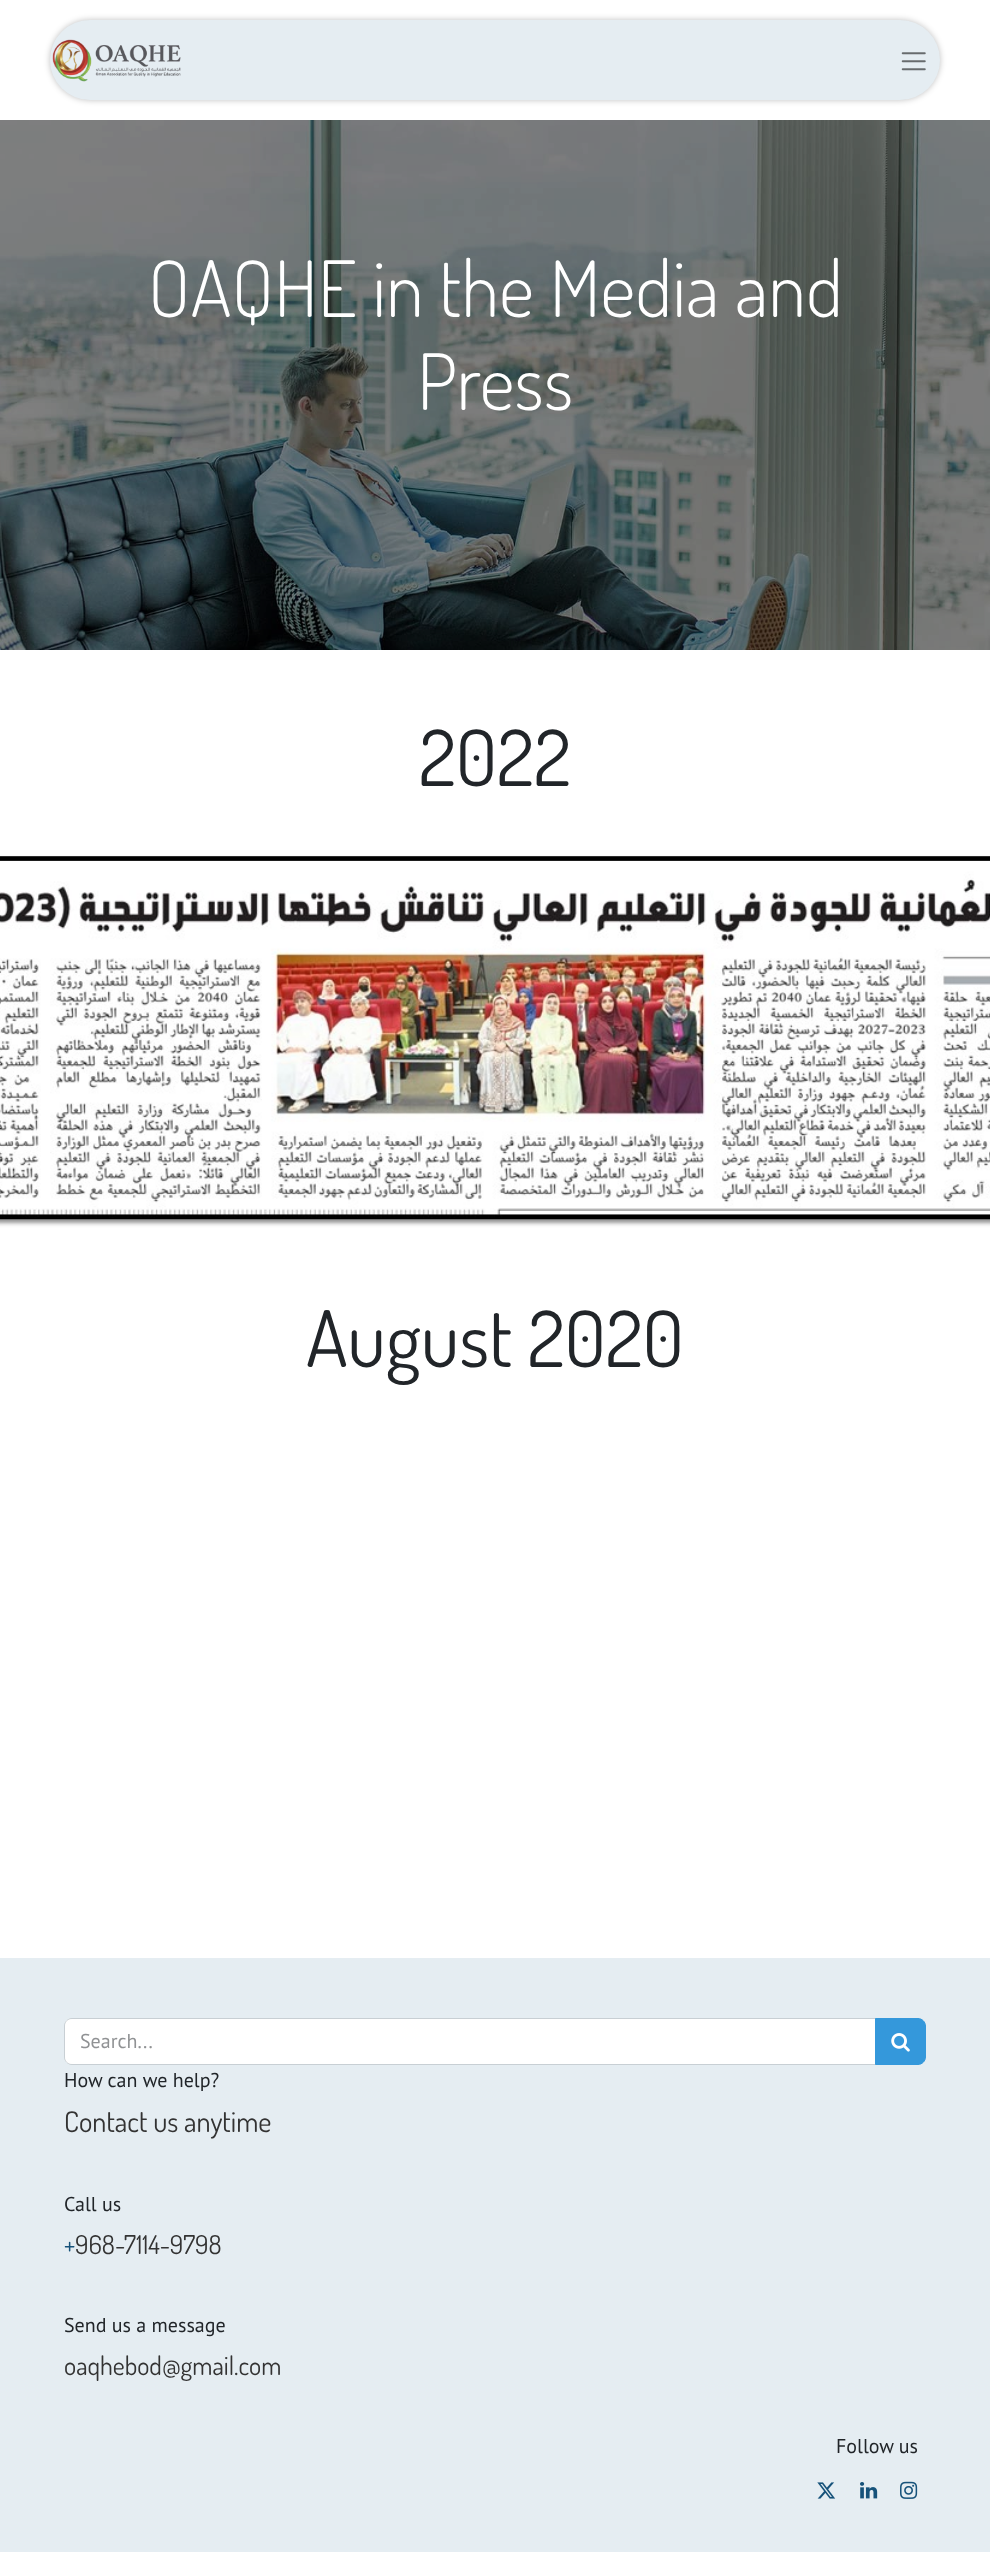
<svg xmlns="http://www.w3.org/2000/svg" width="990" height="2552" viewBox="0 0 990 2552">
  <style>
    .t1 { font: 300 77.5px Dosis; fill: #fff; }
    .t2 { font: 77.5px Dosis; fill: #212529; }
    .t3 { font: 20px PT Sans; fill: #909294; }
    .t4 { font: 20px PT Sans; fill: #212529; }
    .t5 { font: 28.5px Dosis; fill: #333; }
    .t6 { font: 25.9px Dosis; fill: #16527a; }
    .t7 { font: 25.9px Dosis; fill: #333; }
  </style>
  <rect width="100%" height="100%" fill="#fff"/>
  <rect x="50" y="20" width="890" height="80" rx="40" fill="#00000040" filter="blur(3px)"/>
  <rect x="50" y="20" width="890" height="80" rx="40" fill="#e5edf2"/>
  <image x="52" y="39" width="129" height="43" href="images/1.png"/>
  <image x="901" y="52" width="25" height="19" href="images/2.png"/>
  <image x="0" y="120" width="990" height="530" href="images/3.png"/>
  <text x="148" y="317" class="t1">OAQHE in the Media and</text>
  <text x="417" y="410" class="t1">Press</text>
  <text x="419" y="786" class="t2">2022</text>
  <image x="0" y="853" width="990" height="377" href="images/4.png"/>
  <text x="306" y="1367" class="t2">August 2020</text>
  <rect x="0" y="1958" width="990" height="594" fill="#e5edf2"/>
  <path d="M71 2019H875V2064H71C67.5 2064 65 2061.5 65 2058V2025C65 2021.5 67.5 2019 71 2019Z" fill="#fff"/>
  <path d="M72 2018.5H875.5V2064.5H72C68 2064.5 64.5 2061 64.5 2057V2026C64.5 2022 68 2018.5 72 2018.5Z" fill="none" stroke="#21252926"/>
  <text x="80" y="2048" class="t3">Search...</text>
  <path d="M875.5 2018.5H918C922 2018.5 925.5 2022 925.5 2026V2057C925.5 2061 922 2064.5 918 2064.5H875.5Z" fill="#3498db" stroke="#3498db"/>
  <image x="891" y="2033" width="19" height="19" href="images/5.png"/>
  <text x="64" y="2087" class="t4">How can we help?</text>
  <text x="64" y="2132" class="t5">Contact us anytime</text>
  <text x="64" y="2211" class="t4">Call us</text>
  <text x="64" y="2254" class="t6">+</text>
  <text x="75" y="2254" class="t7">968-7114-9798</text>
  <text x="64" y="2332" class="t4">Send us a message</text>
  <text x="64" y="2375" class="t7">oaqhebod@gmail.com</text>
  <text x="836" y="2453" class="t4">Follow us</text>
  <image x="817" y="2482" width="19" height="17" href="images/6.png"/>
  <image x="860" y="2482" width="18" height="17" href="images/7.png"/>
  <image x="900" y="2481" width="18" height="18" href="images/8.png"/>
</svg>
